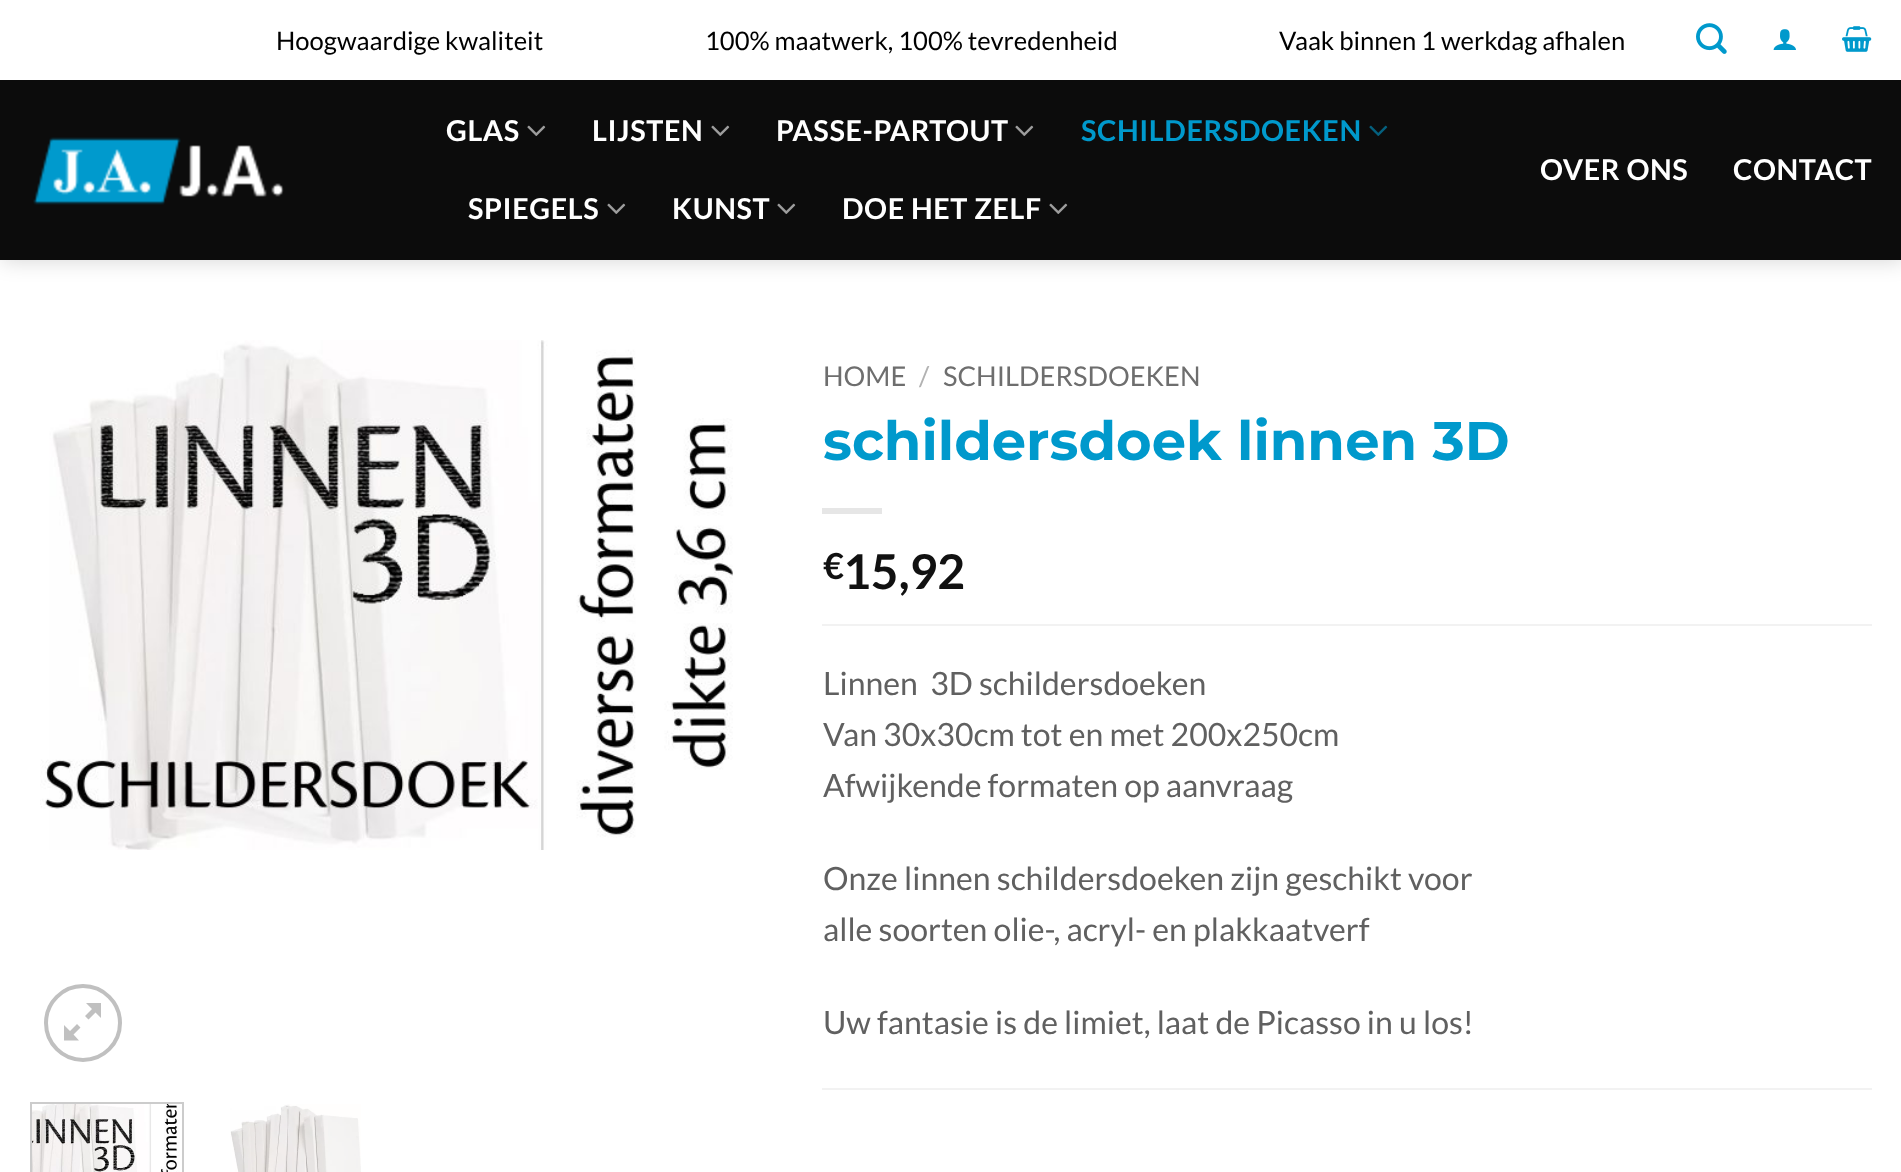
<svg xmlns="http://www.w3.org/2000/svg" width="1901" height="1172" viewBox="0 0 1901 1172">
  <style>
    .t1 { font: 25.6px Lato; fill: #000; }
    .t2 { font: bold 28.75px Lato; letter-spacing: 0.6px; fill: #fff; }
    .t3 { font: bold 28.75px Lato; letter-spacing: 0.6px; fill: #09c; }
    .t4 { font: 27.25px Lato; fill: #6e6e6e; }
    .t5 { font: 27.25px Lato; fill: #b2b2b2; }
    .t6 { font: 100 54.4px Montserrat; fill: #09c; }
    .t7 { font: bold 36px Lato; fill: #111; }
    .t8 { font: bold 48px Lato; fill: #111; }
    .t9 { font: 32px Lato; fill: #606060; }
  </style>
  <rect width="100%" height="100%" fill="#fff"/>
  <rect x="2" y="2" width="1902" height="260" fill="#00000026" filter="blur(10px)"/>
  <rect x="0" y="0" width="1901" height="80" fill="#fff"/>
  <text x="276" y="50" class="t1">Hoogwaardige kwaliteit</text>
  <text x="705" y="50" class="t1">100% maatwerk, 100% tevredenheid</text>
  <text x="1279" y="50" class="t1">Vaak binnen 1 werkdag afhalen</text>
  <image x="1696" y="23" width="31" height="31" href="images/1.png"/>
  <image x="1773" y="29" width="23" height="21" href="images/2.png"/>
  <image x="1842" y="26" width="30" height="26" href="images/3.png"/>
  <rect x="0" y="80" width="1901" height="180" fill="#0c0c0c"/>
  <image x="33" y="137" width="251" height="68" href="images/4.png"/>
  <text x="446" y="141" class="t2">GLAS</text>
  <image x="527" y="125" width="19" height="11" href="images/5.png"/>
  <text x="592" y="141" class="t2">LIJSTEN</text>
  <image x="711" y="125" width="19" height="11" href="images/5.png"/>
  <text x="776" y="141" class="t2">PASSE-PARTOUT</text>
  <image x="1015" y="125" width="19" height="11" href="images/5.png"/>
  <text x="1081" y="141" class="t3">SCHILDERSDOEKEN</text>
  <image x="1369" y="125" width="19" height="11" href="images/6.png"/>
  <text x="468" y="219" class="t2">SPIEGELS</text>
  <image x="607" y="203" width="19" height="11" href="images/5.png"/>
  <text x="672" y="219" class="t2">KUNST</text>
  <image x="777" y="203" width="19" height="11" href="images/5.png"/>
  <text x="842" y="219" class="t2">DOE HET ZELF</text>
  <image x="1049" y="203" width="19" height="11" href="images/5.png"/>
  <text x="1540" y="180" class="t2">OVER ONS</text>
  <text x="1733" y="180" class="t2">CONTACT</text>
  <image x="40" y="340" width="693" height="510" href="images/7.png"/>
  <circle cx="83" cy="1023" r="37" fill="none" stroke="#c0c0c0" stroke-width="4"/>
  <path d="M101 1003V1018L95.5 1012.5L88.5 1019.5L85 1016L92 1009L86 1003ZM80.5 1027.5L73.5 1034.5L79 1040.5H64V1025L70 1031L77 1024Z" fill="#c0c0c0"/>
  <rect x="31" y="1103" width="152" height="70" fill="none" stroke="#ccc" stroke-width="2"/>
  <image x="32" y="1104" width="148" height="68" href="images/8.png"/>
  <image x="230" y="1104" width="131" height="68" href="images/9.png"/>
  <text x="823" y="386" class="t4">HOME</text>
  <text x="919" y="386" class="t5">/</text>
  <text x="943" y="386" class="t4">SCHILDERSDOEKEN</text>
  <text x="823" y="460" class="t6">schildersdoek linnen 3D</text>
  <rect x="822" y="508" width="60" height="6" fill="#e6e6e6"/>
  <text x="823" y="579" class="t7">€</text>
  <text x="843" y="589" class="t8">15,92</text>
  <rect x="822" y="624" width="1050" height="2" fill="#f2f2f2"/>
  <text x="823" y="695" class="t9" xml:space="preserve">Linnen  3D schildersdoeken</text>
  <text x="823" y="746" class="t9">Van 30x30cm tot en met 200x250cm</text>
  <text x="823" y="797" class="t9">Afwijkende formaten op aanvraag</text>
  <text x="823" y="890" class="t9">Onze linnen schildersdoeken zijn geschikt voor</text>
  <text x="823" y="941" class="t9">alle soorten olie-, acryl- en plakkaatverf</text>
  <text x="823" y="1034" class="t9">Uw fantasie is de limiet, laat de Picasso in u los!</text>
  <rect x="822" y="1088" width="1050" height="2" fill="#f2f2f2"/>
</svg>
